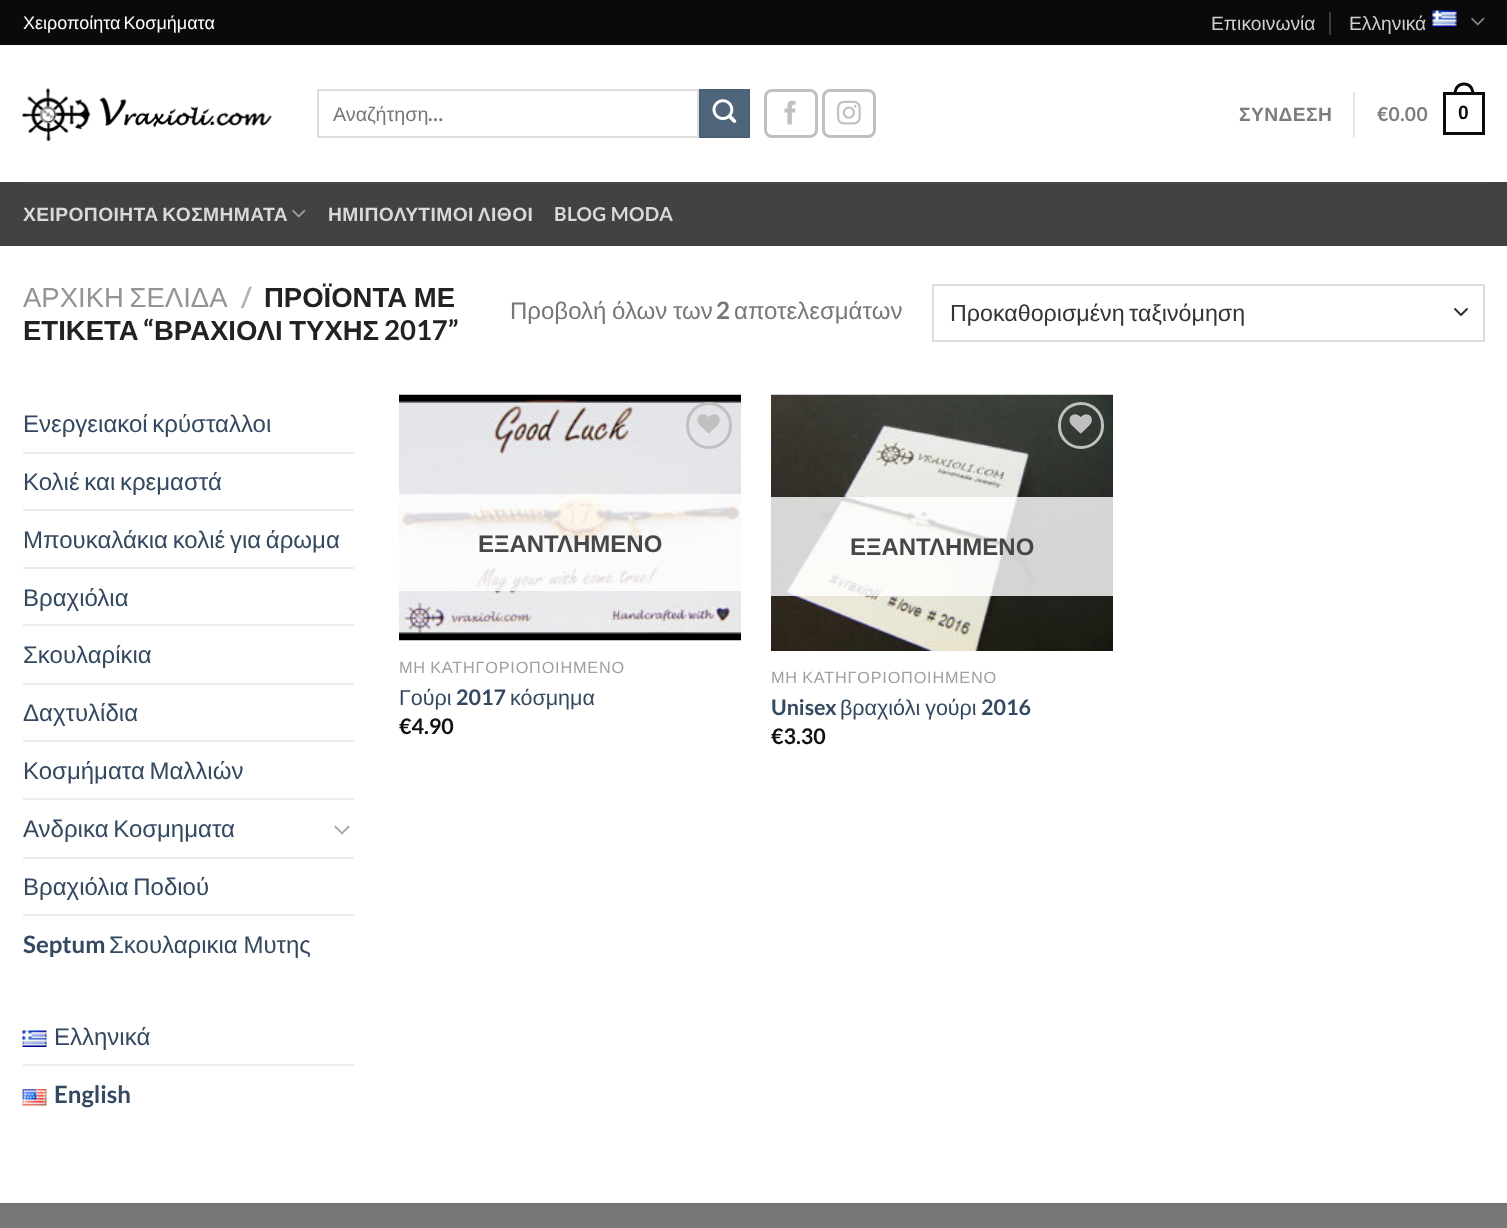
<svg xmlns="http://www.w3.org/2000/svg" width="1507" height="1228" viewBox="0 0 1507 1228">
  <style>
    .t1 { font: 18px Liberation Sans; fill: #fff; }
    .t2 { font: 19.25px Liberation Sans; fill: #cecece; }
    .t3 { font: 19.75px Liberation Sans; fill: #777; }
    .t4 { font: bold 19.75px Lato; fill: #777; }
    .t5 { font: bold 19.25px Liberation Sans; letter-spacing: 0.4px; fill: #7d7d7d; }
    .t6 { font: bold 19.25px Lato; letter-spacing: 0.4px; fill: #7d7d7d; }
    .t7 { font: bold 19.25px Liberation Sans; letter-spacing: 0.4px; fill: #0a0a0a; }
    .t8 { font: bold 19.25px Liberation Sans; letter-spacing: 0.4px; fill: #d9d9d9; }
    .t9 { font: bold 19.25px Lato; letter-spacing: 0.4px; fill: #d9d9d9; }
    .t10 { font: 27.5px Liberation Sans; fill: #949494; }
    .t11 { font: bold 27.5px Lato; fill: #b2b2b2; }
    .t12 { font: bold 27.5px Liberation Sans; fill: #222; }
    .t13 { font: bold 27.5px Lato; fill: #222; }
    .t14 { font: 24px Liberation Sans; fill: #777; }
    .t15 { font: bold 24px Lato; fill: #777; }
    .t16 { font: 23.25px Liberation Sans; fill: #333; }
    .t17 { font: 24px Liberation Sans; fill: #334862; }
    .t18 { font: bold 24px Lato; fill: #334862; }
    .t19 { font: bold 24px Liberation Sans; fill: #474747; }
    .t20 { font: 16.25px Liberation Sans; letter-spacing: 0.8px; fill: #a0a0a0; }
    .t21 { font: 21.5px Liberation Sans; fill: #334862; }
    .t22 { font: bold 21.5px Lato; fill: #334862; }
    .t23 { font: bold 21.5px Lato; fill: #111; }
  </style>
  <rect width="100%" height="100%" fill="#fff"/>
  <rect x="0" y="0" width="1507" height="45" fill="#0a0a0a"/>
  <text x="23" y="29" word-spacing="-2" class="t1">Χειροποίητα Κοσμήματα</text>
  <text x="1211" y="30" class="t2">Επικοινωνία</text>
  <rect x="1329" y="12" width="2" height="23" fill="#3b3b3b"/>
  <text x="1349" y="30" class="t2">Ελληνικά</text>
  <image x="1432" y="10" width="25" height="17" href="images/1.png"/>
  <image x="1471" y="17" width="14" height="9" href="images/2.png"/>
  <image x="22" y="88" width="250" height="53" href="images/3.png"/>
  <rect x="318" y="90" width="380" height="47" fill="none" stroke="#ddd" stroke-width="2"/>
  <text x="333" y="121" class="t3">Αναζήτηση</text>
  <text x="428" y="121" class="t4">…</text>
  <rect x="700" y="90" width="49" height="47" fill="#4e657b" stroke="#4a6075" stroke-width="2"/>
  <image x="712" y="99" width="25" height="24" href="images/4.png"/>
  <rect x="765.5" y="90.5" width="51" height="46" rx="6.5" fill="none" stroke="#c0c0c0" stroke-width="3"/>
  <image x="784" y="100" width="12" height="25" href="images/5.png"/>
  <rect x="823.5" y="90.5" width="51" height="46" rx="6.5" fill="none" stroke="#c0c0c0" stroke-width="3"/>
  <image x="837" y="100" width="24" height="25" href="images/6.png"/>
  <text x="1239" y="121" class="t5">ΣΥΝΔΕΣΗ</text>
  <rect x="1353" y="92" width="2" height="45" fill="#e6e6e6"/>
  <text x="1377" y="121" class="t6">€0.00</text>
  <rect x="1444.5" y="93.5" width="39" height="40" fill="none" stroke="#0a0a0a" stroke-width="3"/>
  <path d="M1464 82.5C1471 82.5 1474.5 88 1474.5 94.5H1453.5C1453.5 88 1457 82.5 1464 82.5ZM1464 85.5C1469.5 85.5 1471.5 90 1471.5 94.5H1456.5C1456.5 90 1458.5 85.5 1464 85.5Z" fill="#0a0a0a" fill-rule="evenodd"/>
  <text x="1458" y="119" class="t7">0</text>
  <rect x="0" y="182" width="1507" height="64" fill="#424242"/>
  <rect x="23" y="182" width="1462" height="2" fill="#474747"/>
  <text x="23" y="221" word-spacing="-2" class="t8">ΧΕΙΡΟΠΟΙΗΤΑ ΚΟΣΜΗΜΑΤΑ</text>
  <image x="292" y="209" width="14" height="9" href="images/7.png"/>
  <text x="328" y="221" word-spacing="-1" class="t8">ΗΜΙΠΟΛΥΤΙΜΟΙ ΛΙΘΟΙ</text>
  <text x="554" y="221" class="t9">BLOG MODA</text>
  <text x="23" y="307" word-spacing="-2" class="t10">ΑΡΧΙΚΗ ΣΕΛΙΔΑ</text>
  <text x="241" y="307" class="t11">/</text>
  <text x="264" y="307" word-spacing="-1" class="t12">ΠΡΟΪΟΝΤΑ ΜΕ</text>
  <text x="23" y="340" class="t12">ΕΤΙΚΕΤΑ</text>
  <text x="143" y="340" class="t13">“</text>
  <text x="154" y="340" word-spacing="-1" class="t12">ΒΡΑΧΙΟΛΙ ΤΥΧΗΣ</text>
  <text x="384" y="340" class="t13">2017”</text>
  <text x="510" y="319" word-spacing="-1" class="t14">Προβολή όλων των</text>
  <text x="716" y="319" class="t15">2</text>
  <text x="734" y="319" class="t14">αποτελεσμάτων</text>
  <path d="M1455 309L1461 315L1467 309" fill="none" stroke="#333" stroke-width="2" stroke-linecap="round" stroke-linejoin="round"/>
  <rect x="933" y="285" width="551" height="56" fill="none" stroke="#ddd" stroke-width="2"/>
  <text x="950" y="321" word-spacing="-2" class="t16">Προκαθορισμένη ταξινόμηση</text>
  <text x="23" y="432" word-spacing="-2" class="t17">Ενεργειακοί κρύσταλλοι</text>
  <rect x="23" y="452" width="331" height="2" fill="#ececec"/>
  <text x="23" y="490" word-spacing="-2" class="t17">Κολιέ και κρεμαστά</text>
  <rect x="23" y="509" width="331" height="2" fill="#ececec"/>
  <text x="23" y="548" word-spacing="-2" class="t17">Μπουκαλάκια κολιέ για άρωμα</text>
  <rect x="23" y="567" width="331" height="2" fill="#ececec"/>
  <text x="23" y="606" class="t17">Βραχιόλια</text>
  <rect x="23" y="624" width="331" height="2" fill="#ececec"/>
  <text x="23" y="663" class="t17">Σκουλαρίκια</text>
  <rect x="23" y="683" width="331" height="2" fill="#ececec"/>
  <text x="23" y="721" class="t17">Δαχτυλίδια</text>
  <rect x="23" y="740" width="331" height="2" fill="#ececec"/>
  <text x="23" y="779" word-spacing="-2" class="t17">Κοσμήματα Μαλλιών</text>
  <rect x="23" y="798" width="331" height="2" fill="#ececec"/>
  <text x="23" y="837" word-spacing="-2" class="t17">Ανδρικα Κοσμηματα</text>
  <image x="334" y="825" width="16" height="10" href="images/8.png"/>
  <rect x="23" y="857" width="331" height="2" fill="#ececec"/>
  <text x="23" y="895" word-spacing="-2" class="t17">Βραχιόλια Ποδιού</text>
  <rect x="23" y="914" width="331" height="2" fill="#ececec"/>
  <text x="23" y="953" class="t18">Septum</text>
  <text x="109" y="953" word-spacing="-1" class="t17">Σκουλαρικια Μυτης</text>
  <image x="22" y="1030" width="25" height="17" href="images/9.png"/>
  <text x="54" y="1045" class="t17">Ελληνικά</text>
  <rect x="23" y="1064" width="331" height="2" fill="#ececec"/>
  <image x="22" y="1089" width="25" height="17" href="images/10.png"/>
  <text x="54" y="1103" class="t18">English</text>
  <image x="399" y="394" width="342" height="247" href="images/11.png"/>
  <rect x="687.5" y="403.5" width="43" height="44" rx="21.5" fill="none" stroke="#c0c0c0" stroke-width="3"/>
  <image x="697" y="414" width="23" height="20" href="images/12.png"/>
  <rect x="399" y="494" width="342" height="97" fill="#ffffffcf"/>
  <text x="478" y="552" class="t19">ΕΞΑΝΤΛΗΜΕΝΟ</text>
  <text x="399" y="673" word-spacing="-1" class="t20">ΜΗ ΚΑΤΗΓΟΡΙΟΠΟΙΗΜΕΝΟ</text>
  <text x="399" y="705" class="t21">Γούρι</text>
  <text x="456" y="705" class="t22">2017</text>
  <text x="510" y="705" class="t21">κόσμημα</text>
  <text x="399" y="734" class="t23">€4.90</text>
  <image x="771" y="394" width="342" height="257" href="images/13.png"/>
  <rect x="1059.5" y="403.5" width="43" height="44" rx="21.5" fill="none" stroke="#c0c0c0" stroke-width="3"/>
  <image x="1069" y="414" width="23" height="20" href="images/14.png"/>
  <rect x="771" y="497" width="342" height="99" fill="#ffffffcf"/>
  <text x="850" y="555" class="t19">ΕΞΑΝΤΛΗΜΕΝΟ</text>
  <text x="771" y="683" word-spacing="-1" class="t20">ΜΗ ΚΑΤΗΓΟΡΙΟΠΟΙΗΜΕΝΟ</text>
  <text x="771" y="715" class="t22">Unisex</text>
  <text x="840" y="715" word-spacing="-1" class="t21">βραχιόλι γούρι</text>
  <text x="981" y="715" class="t22">2016</text>
  <text x="771" y="744" class="t23">€3.30</text>
  <rect x="0" y="1205" width="1507" height="23" fill="#777"/>
  <rect x="0" y="1203" width="1507" height="2" fill="#717171"/>
</svg>
